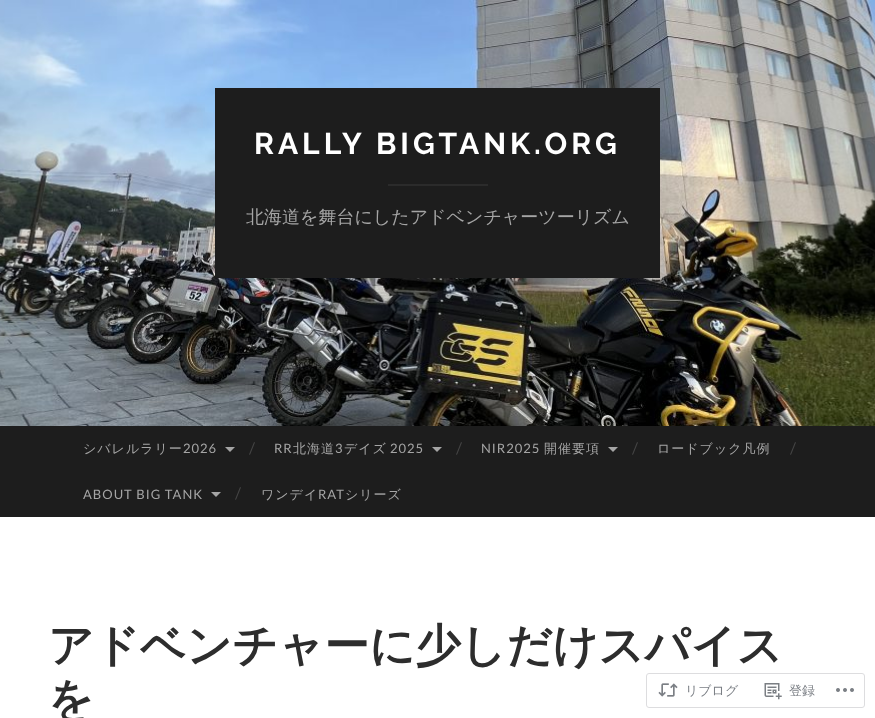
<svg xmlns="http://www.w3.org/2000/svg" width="875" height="718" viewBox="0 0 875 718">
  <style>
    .t1 { font: bold 30px Raleway; letter-spacing: 4px; fill: #fff; }
    .t2 { font: 500 18px WenQuanYi Zen Hei; fill: #a5a5a5; }
    .t3 { font: 500 13px WenQuanYi Zen Hei; letter-spacing: 1px; fill: #a5a5a5; }
    .t4 { font: 13px Lato; letter-spacing: 1px; fill: #a5a5a5; }
    .t5 { font: 16px Lato; fill: #444; }
    .t6 { font: bold 45px WenQuanYi Zen Hei; fill: #2d2d2d; }
    .t7 { font: 500 13px WenQuanYi Zen Hei; fill: #7b7f85; }
  </style>
  <rect width="100%" height="100%" fill="#fff"/>
  <image x="0" y="0" width="875" height="426" href="images/1.png"/>
  <rect x="215" y="88" width="445" height="190" fill="#1d1d1d"/>
  <text x="254" y="154" class="t1">RALLY BIGTANK.ORG</text>
  <rect x="388" y="184" width="100" height="2" fill="#2b2b2b"/>
  <text x="246" y="223" class="t2">北海道を舞台にしたアドベンチャーツーリズム</text>
  <rect x="0" y="426" width="875" height="91" fill="#1d1d1d"/>
  <text x="83" y="453" class="t3">シバレルラリー</text>
  <text x="183" y="453" class="t4">2026</text>
  <path d="M225 447H235L230 452Z" fill="#a5a5a5"/>
  <text x="249" y="454" class="t5">/</text>
  <text x="274" y="453" class="t4">RR</text>
  <text x="293" y="453" class="t3">北海道</text>
  <text x="335" y="453" class="t4">3</text>
  <text x="344" y="453" class="t3">デイズ</text>
  <text x="390" y="453" class="t4">2025</text>
  <path d="M432 447H442L437 452Z" fill="#a5a5a5"/>
  <text x="456" y="454" class="t5">/</text>
  <text x="481" y="453" class="t4">NIR2025</text>
  <text x="544" y="453" class="t3">開催要項</text>
  <path d="M608 447H618L613 452Z" fill="#a5a5a5"/>
  <text x="632" y="454" class="t5">/</text>
  <text x="657" y="453" class="t3">ロードブック凡例</text>
  <text x="790" y="454" class="t5">/</text>
  <text x="83" y="499" class="t4">ABOUT BIG TANK</text>
  <path d="M211 492H221L216 497Z" fill="#a5a5a5"/>
  <text x="235" y="499" class="t5">/</text>
  <text x="261" y="499" class="t3">ワンデイ</text>
  <text x="318" y="499" class="t4">RAT</text>
  <text x="345" y="499" class="t3">シリーズ</text>
  <text x="48" y="661" class="t6">アドベンチャーに少しだけスパイス</text>
  <text x="48" y="715" class="t6">を</text>
  <rect x="646.5" y="673.5" width="218" height="34" rx="2.5" fill="none" stroke="#dddddf"/>
  <image x="658" y="683" width="20" height="14" href="images/2.png"/>
  <text x="685" y="695" class="t7">リブログ</text>
  <image x="764" y="683" width="18" height="17" href="images/3.png"/>
  <text x="789" y="695" class="t7">登録</text>
  <image x="836" y="688" width="18" height="4" href="images/4.png"/>
</svg>
